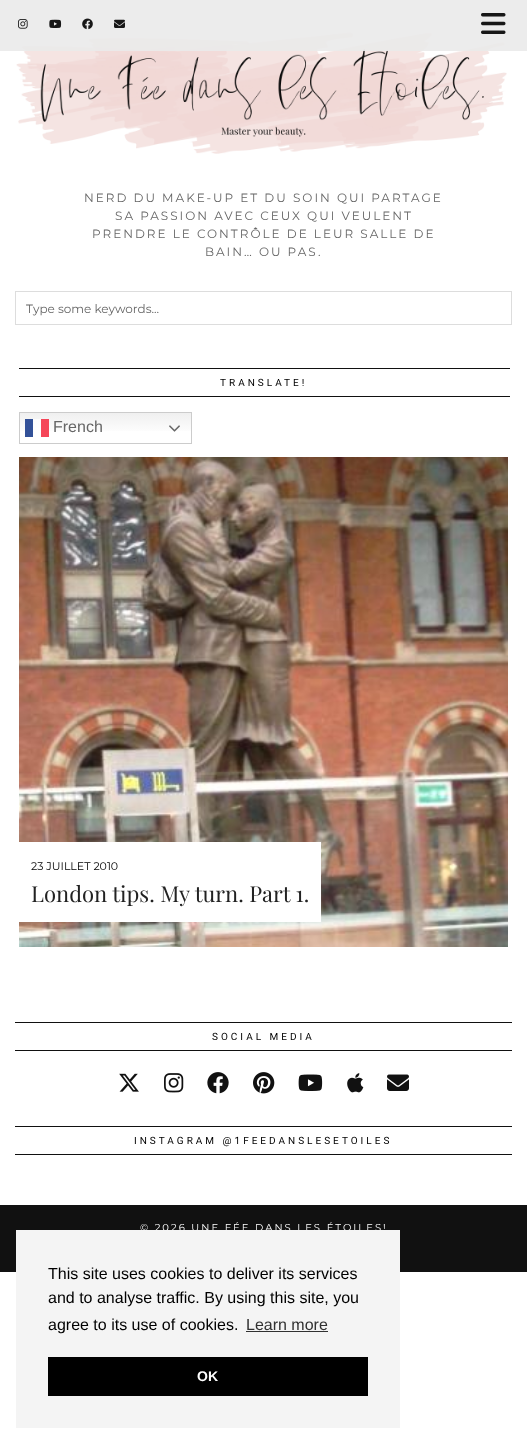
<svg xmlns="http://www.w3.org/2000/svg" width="527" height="1444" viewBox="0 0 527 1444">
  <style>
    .t1 { font: 100 12px Montserrat; letter-spacing: 2px; fill: #666; }
    .t2 { font: 100 12px Montserrat; fill: #666; }
    .t3 { font: 10px Roboto; letter-spacing: 3px; fill: #000; }
    .t4 { font: 16px Liberation Sans; fill: #666; }
    .t5 { font: 100 11px Montserrat; fill: #000; }
    .t6 { font: 22px Playfair Display; fill: #222; }
    .t7 { font: 100 10px Montserrat; letter-spacing: 2px; fill: #fff; }
    .t8 { font: 16px Liberation Sans; fill: #000; }
    .t9 { font: 16px Liberation Sans; fill: #313131; }
    .t10 { font: bold 14px Liberation Sans; fill: #fff; }
  </style>
  <defs>
    <linearGradient id="g1" gradientUnits="userSpaceOnUse" x1="106" y1="412" x2="106" y2="444"><stop offset="0" stop-color="#efefef"/><stop offset="0.7" stop-color="#fff"/></linearGradient>
    <linearGradient id="g2" gradientUnits="userSpaceOnUse" x1="106" y1="412" x2="106" y2="444"><stop offset="0" stop-color="#fcfcfc"/><stop offset="0.7" stop-color="#fff"/></linearGradient>
  </defs>
  <rect width="100%" height="100%" fill="#fff"/>
  <image x="16" y="32" width="491" height="122" href="images/6.png"/>
  <rect x="0" y="0" width="527" height="51" fill="#eaeaeae6"/>
  <image x="18" y="19" width="10" height="10" href="images/1.png"/>
  <image x="49" y="19" width="13" height="9" href="images/2.png"/>
  <image x="82" y="18" width="11" height="12" href="images/3.png"/>
  <image x="114" y="19" width="11" height="9" href="images/4.png"/>
  <image x="481" y="13" width="25" height="21" href="images/5.png"/>
  <text x="84" y="202" class="t1">NERD DU MAKE-UP ET DU SOIN QUI PARTAGE</text>
  <text x="115" y="220" class="t1">SA PASSION AVEC CEUX QUI VEULENT</text>
  <text x="92" y="238" class="t1">PRENDRE LE CONTRÔLE DE LEUR SALLE DE</text>
  <text x="205" y="256" class="t1">BAIN… OU PAS.</text>
  <rect x="15.5" y="291.5" width="496" height="33" fill="none" stroke="#ddd"/>
  <text x="26" y="313" class="t2">Type some keywords...</text>
  <rect x="19" y="368" width="491" height="1" fill="#111"/>
  <rect x="19" y="396" width="491" height="1" fill="#111"/>
  <text x="220" y="386" class="t3">TRANSLATE!</text>
  <rect x="20" y="413" width="171" height="18" fill="url(#g1)"/>
  <rect x="33" y="419" width="8" height="18" fill="url(#g2)"/>
  <rect x="19.5" y="412.5" width="172" height="31" fill="none" stroke="#ccc"/>
  <rect x="25" y="419" width="8" height="18" fill="#335198"/>
  <rect x="41" y="419" width="8" height="18" fill="#f54659"/>
  <text x="53" y="432" class="t4">French</text>
  <image x="169" y="425" width="11" height="7" href="images/7.png"/>
  <image x="19" y="457" width="489" height="490" href="images/8.png"/>
  <rect x="19" y="842" width="302" height="80" fill="#fff"/>
  <text x="31" y="870" class="t5">23 JUILLET 2010</text>
  <text x="31" y="902" class="t6">London tips. My turn. Part 1.</text>
  <rect x="15" y="1022" width="497" height="1" fill="#111"/>
  <rect x="15" y="1050" width="497" height="1" fill="#111"/>
  <text x="212" y="1040" class="t3">SOCIAL MEDIA</text>
  <image x="119" y="1073" width="20" height="19" href="images/9.png"/>
  <image x="164" y="1073" width="20" height="20" href="images/10.png"/>
  <image x="207" y="1072" width="22" height="22" href="images/11.png"/>
  <image x="253" y="1072" width="22" height="22" href="images/12.png"/>
  <image x="298" y="1074" width="25" height="17" href="images/13.png"/>
  <image x="347" y="1073" width="17" height="20" href="images/14.png"/>
  <image x="387" y="1074" width="22" height="17" href="images/15.png"/>
  <rect x="15" y="1126" width="497" height="1" fill="#111"/>
  <rect x="15" y="1154" width="497" height="1" fill="#111"/>
  <text x="134" y="1144" class="t3">INSTAGRAM @1FEEDANSLESETOILES</text>
  <rect x="0" y="1205" width="527" height="67" fill="#111"/>
  <text x="140" y="1231" class="t7">© 2026 UNE FÉE DANS LES ÉTOILES!</text>
  <rect x="16" y="1230" width="384" height="198" fill="#f4f4f4"/>
  <text x="48" y="1279" class="t8">This site uses cookies to deliver its services</text>
  <text x="48" y="1303" class="t8">and to analyse traffic. By using this site, you</text>
  <text x="48" y="1330" class="t8">agree to its use of cookies.</text>
  <text x="246" y="1330" class="t9">Learn more</text>
  <rect x="246" y="1331" width="82" height="1" fill="#313131"/>
  <rect x="48" y="1357" width="320" height="39" fill="#000"/>
  <text x="197" y="1381" class="t10">OK</text>
</svg>
